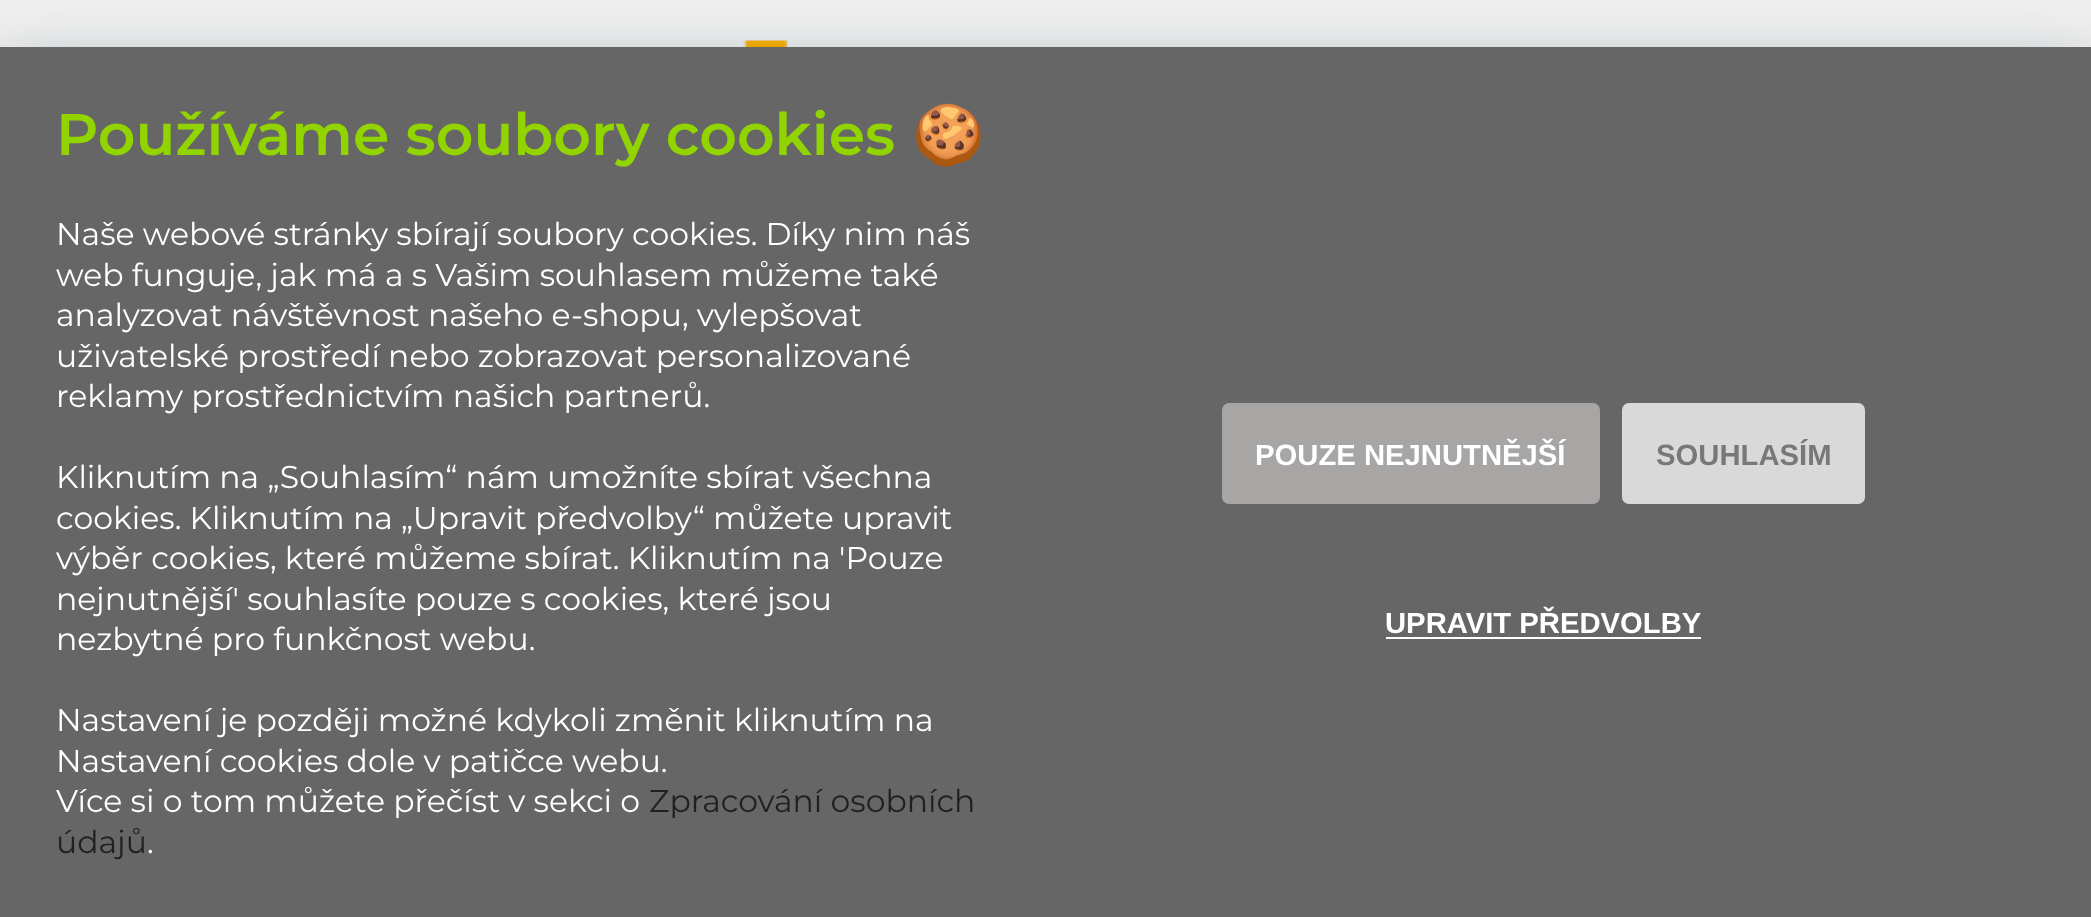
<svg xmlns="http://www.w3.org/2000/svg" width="2091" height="917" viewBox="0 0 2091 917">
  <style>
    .t1 { font: 600 58.5px Montserrat; fill: #92d400; }
    .t2 { font: bold 58.5px Noto Color Emoji; fill: #92d400; }
    .t3 { font: 31.5px Montserrat; fill: #fff; }
    .t4 { font: 31.5px Montserrat; fill: #231f20; }
    .t5 { font: bold 29.25px Liberation Sans; fill: #fff; }
    .t6 { font: bold 29.25px Liberation Sans; fill: #787878; }
  </style>
  <rect width="100%" height="100%" fill="#efefef"/>
  <image x="743" y="40" width="45" height="7" href="images/1.png"/>
  <rect x="0" y="72" width="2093" height="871" fill="#38506180" filter="blur(32.5px)"/>
  <rect x="0" y="47" width="2091" height="870" fill="#666"/>
  <text x="56" y="155" class="t1">Používáme soubory cookies</text>
  <text x="912" y="155" class="t2">🍪</text>
  <text x="56" y="245" class="t3">Naše webové stránky sbírají soubory cookies. Díky nim náš</text>
  <text x="56" y="286" class="t3">web funguje, jak má a s Vašim souhlasem můžeme také</text>
  <text x="56" y="326" class="t3">analyzovat návštěvnost našeho e-shopu, vylepšovat</text>
  <text x="56" y="367" class="t3">uživatelské prostředí nebo zobrazovat personalizované</text>
  <text x="56" y="407" class="t3">reklamy prostřednictvím našich partnerů.</text>
  <text x="56" y="488" class="t3">Kliknutím na „Souhlasím“ nám umožníte sbírat všechna</text>
  <text x="56" y="529" class="t3">cookies. Kliknutím na „Upravit předvolby“ můžete upravit</text>
  <text x="56" y="569" class="t3">výběr cookies, které můžeme sbírat. Kliknutím na 'Pouze</text>
  <text x="56" y="610" class="t3">nejnutnější' souhlasíte pouze s cookies, které jsou</text>
  <text x="56" y="650" class="t3">nezbytné pro funkčnost webu.</text>
  <text x="56" y="731" class="t3">Nastavení je později možné kdykoli změnit kliknutím na</text>
  <text x="56" y="772" class="t3">Nastavení cookies dole v patičce webu.</text>
  <text x="56" y="812" class="t3">Více si o tom můžete přečíst v sekci o</text>
  <text x="649" y="812" class="t4">Zpracování osobních</text>
  <text x="56" y="853" class="t4">údajů</text>
  <text x="147" y="853" class="t3">.</text>
  <rect x="1222" y="403" width="378" height="101" rx="7" fill="#a8a5a5"/>
  <text x="1255" y="465" class="t5">POUZE NEJNUTNĚJŠÍ</text>
  <rect x="1622" y="403" width="243" height="101" rx="7" fill="#d9d9d9"/>
  <text x="1656" y="465" class="t6">SOUHLASÍM</text>
  <text x="1385" y="633" class="t5">UPRAVIT PŘEDVOLBY</text>
  <rect x="1386" y="637" width="315" height="2" fill="#fff"/>
</svg>
